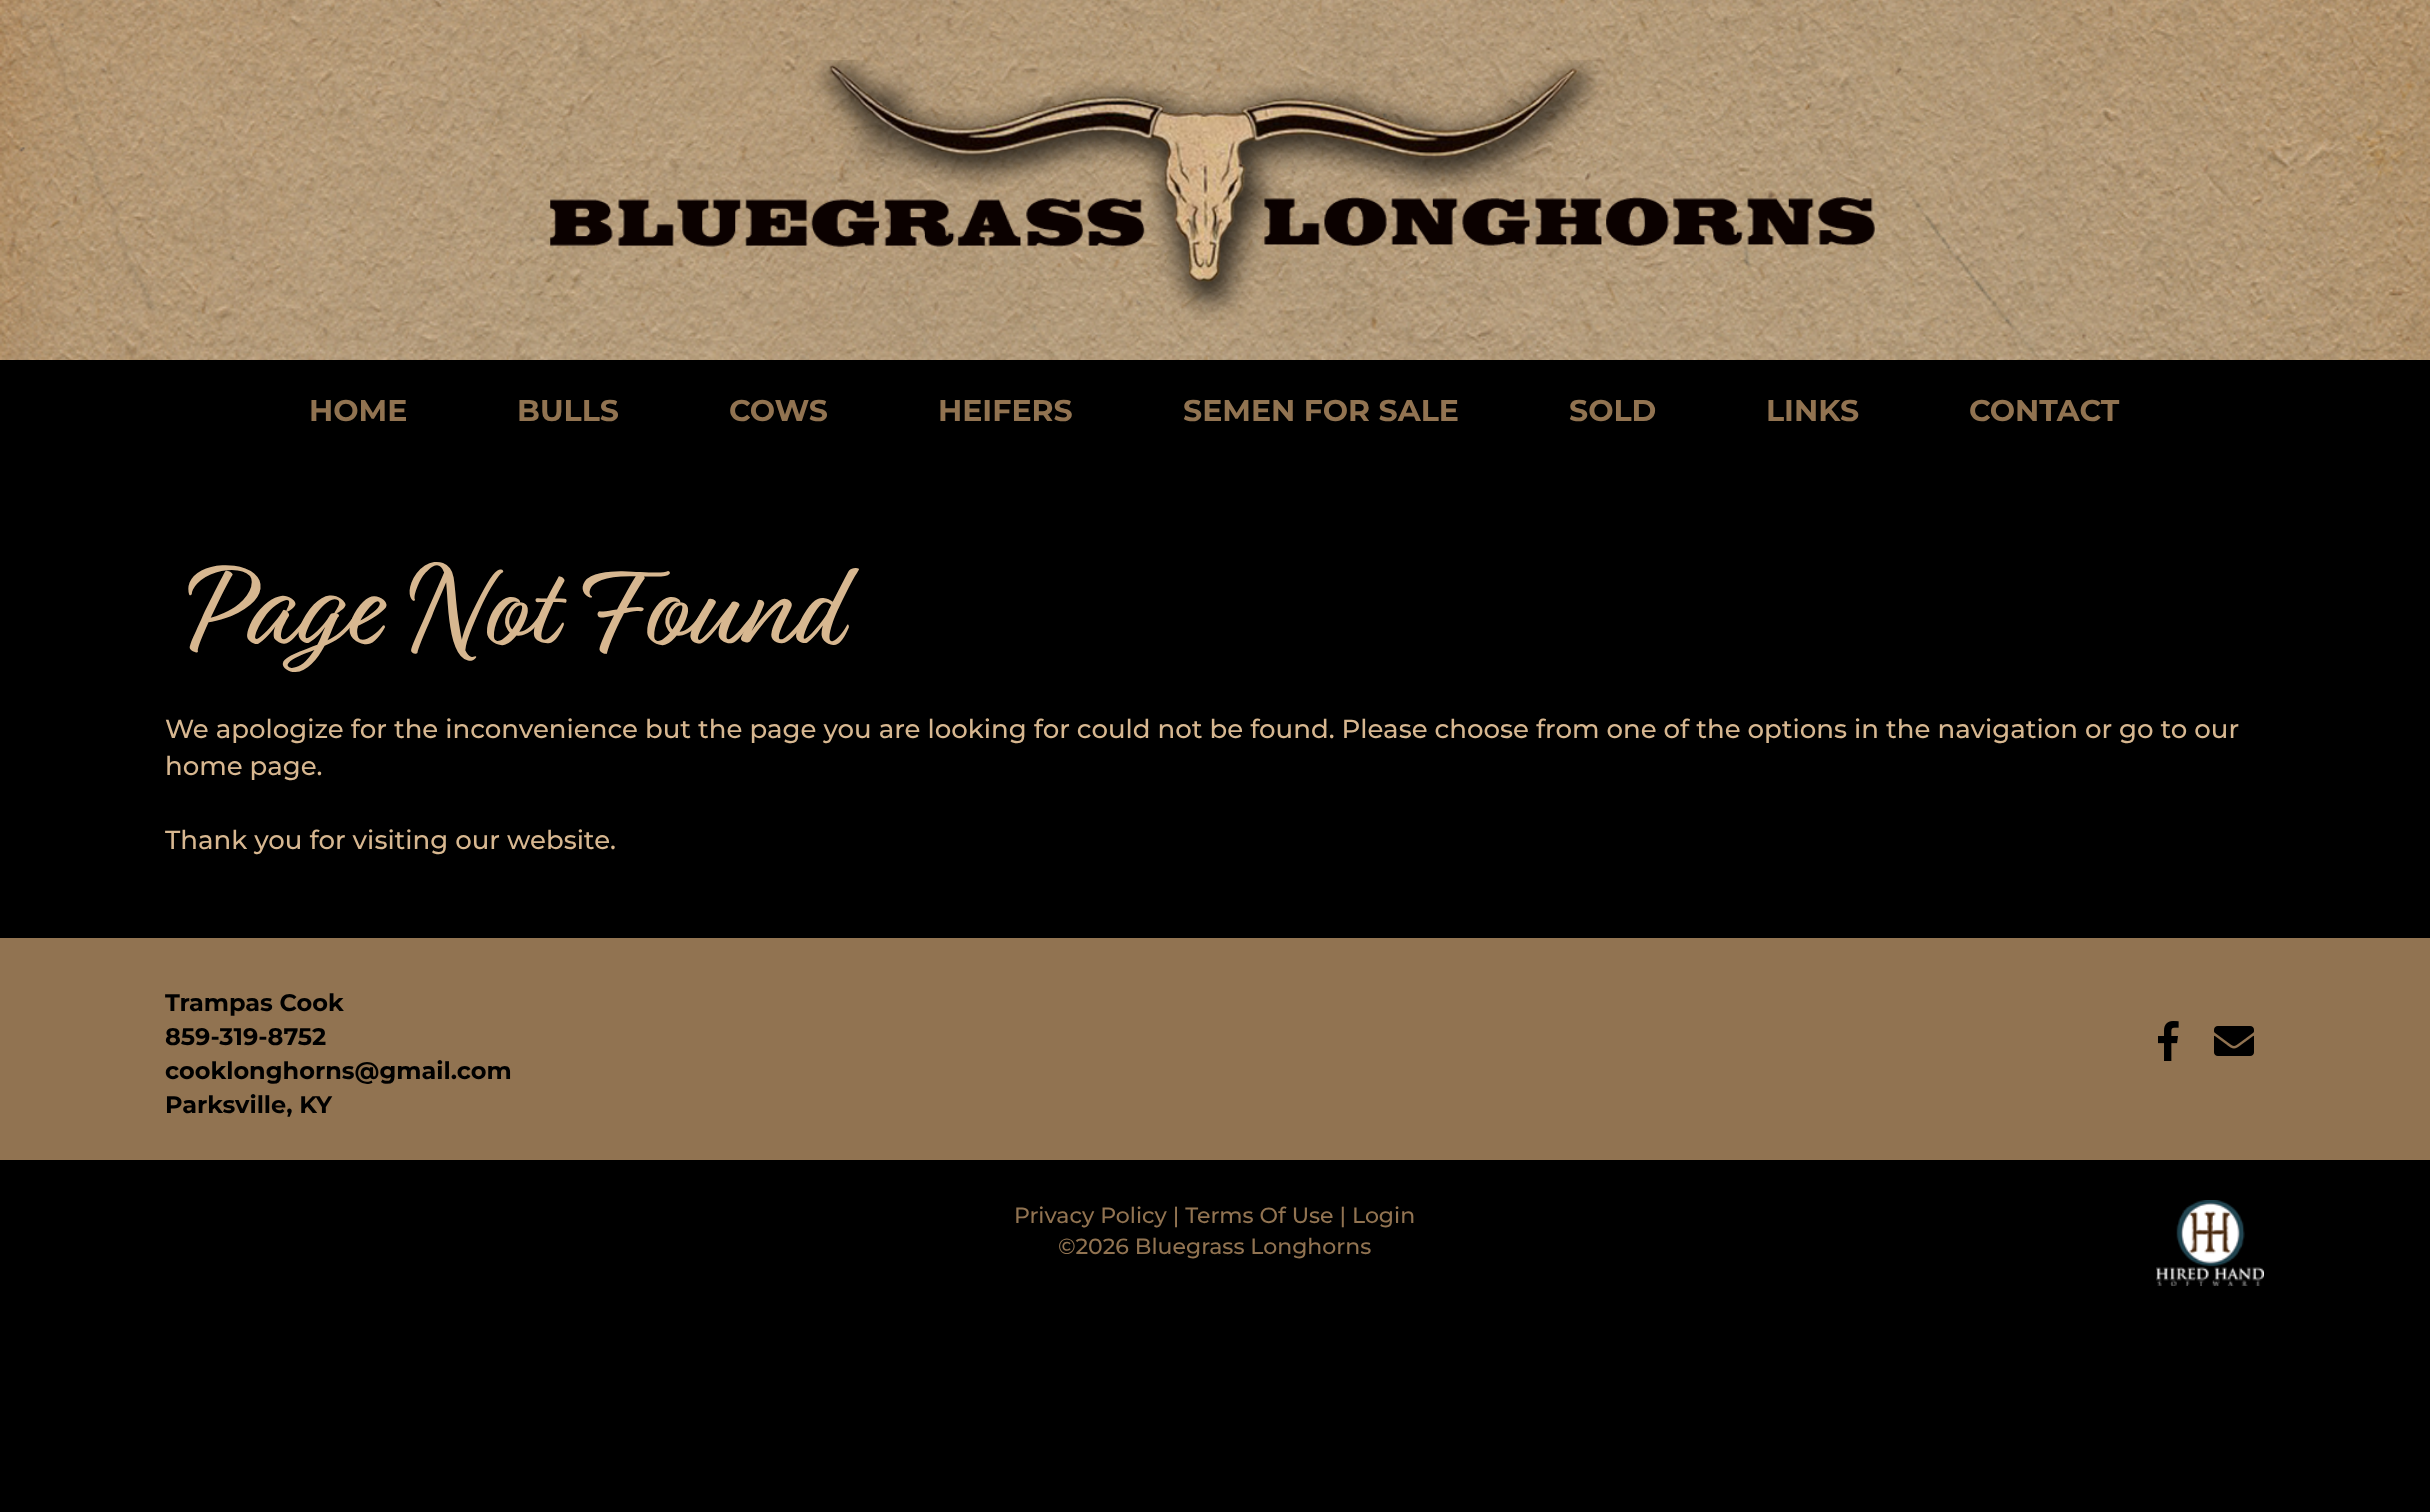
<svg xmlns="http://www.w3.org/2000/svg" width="2430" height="1512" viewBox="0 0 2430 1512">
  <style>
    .t1 { font: bold 30px Montserrat; fill: #917351; }
    .t2 { font: 120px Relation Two; fill: #d7b790; }
    .t3 { font: 500 26px Montserrat; fill: #d7b790; }
    .t4 { font: bold 24px Montserrat; fill: #000; }
    .t5 { font: 500 22px Montserrat; fill: #917351; }
  </style>
  <rect width="100%" height="100%" fill="#000"/>
  <image x="0" y="0" width="2430" height="360" href="images/1.png"/>
  <image x="550" y="60" width="1325" height="260" href="images/2.png"/>
  <text x="309" y="421" class="t1">HOME</text>
  <text x="517" y="421" class="t1">BULLS</text>
  <text x="729" y="421" class="t1">COWS</text>
  <text x="938" y="421" class="t1">HEIFERS</text>
  <text x="1183" y="421" class="t1">SEMEN FOR SALE</text>
  <text x="1569" y="421" class="t1">SOLD</text>
  <text x="1766" y="421" class="t1">LINKS</text>
  <text x="1969" y="421" class="t1">CONTACT</text>
  <text x="185" y="641" class="t2">Page Not Found</text>
  <text x="165" y="738" class="t3">We apologize for the inconvenience but the page you are looking for could not be found. Please choose from one of the options in the navigation or go to our</text>
  <text x="165" y="775" class="t3">home page.</text>
  <text x="165" y="849" class="t3">Thank you for visiting our website.</text>
  <rect x="0" y="938" width="2430" height="222" fill="#917351"/>
  <text x="165" y="1011" class="t4">Trampas Cook</text>
  <text x="165" y="1045" class="t4">859-319-8752</text>
  <text x="165" y="1079" class="t4">cooklonghorns@gmail.com</text>
  <text x="165" y="1113" class="t4">Parksville, KY</text>
  <image x="2158" y="1021" width="21" height="40" href="images/3.png"/>
  <image x="2214" y="1026" width="40" height="30" href="images/4.png"/>
  <text x="1014" y="1223" class="t5">Privacy Policy | Terms Of Use | Login</text>
  <text x="1058" y="1254" class="t5">©2026 Bluegrass Longhorns</text>
  <image x="2156" y="1200" width="108" height="86" href="images/5.png"/>
</svg>
